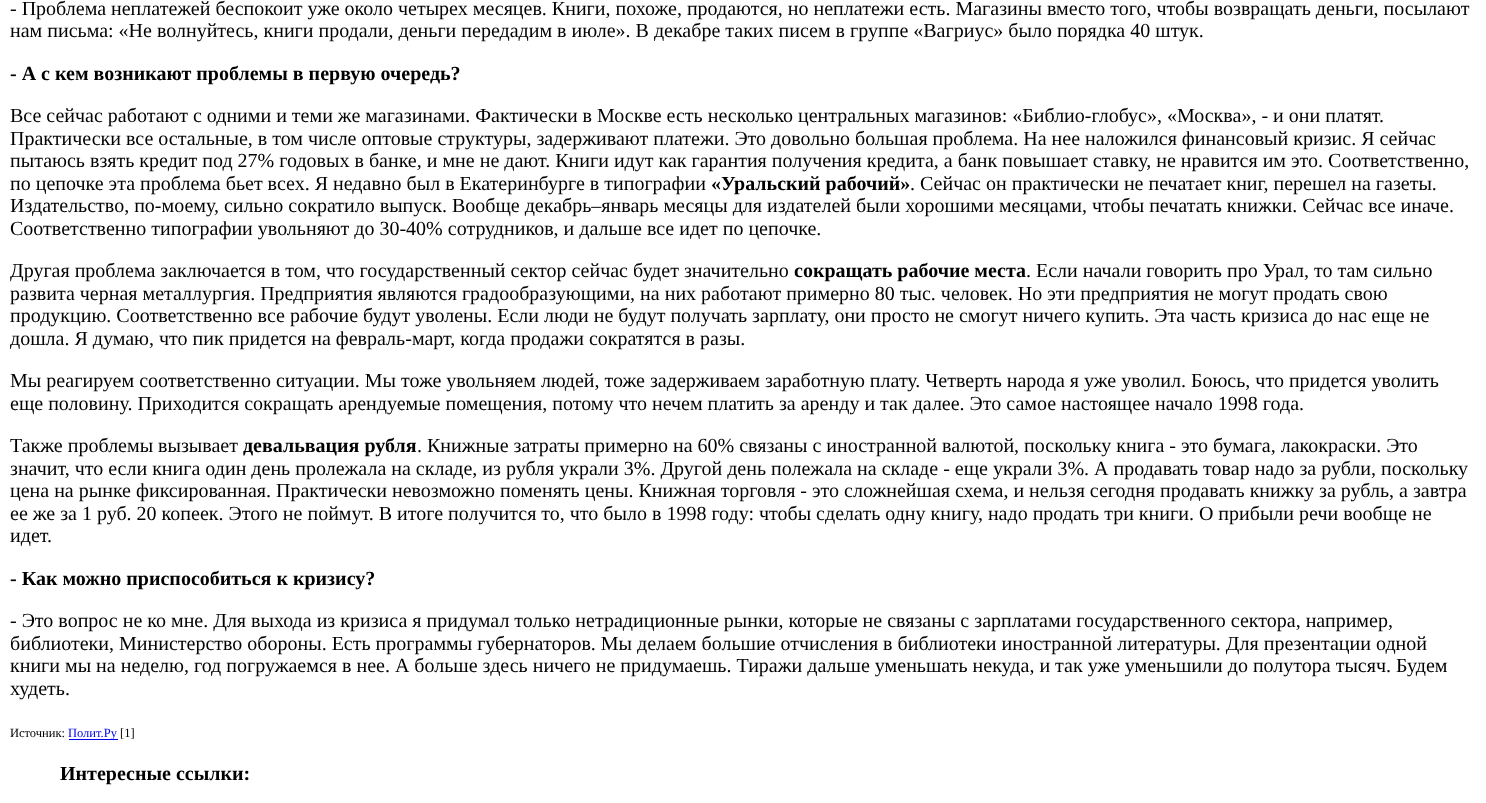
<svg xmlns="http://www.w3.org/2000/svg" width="1486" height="803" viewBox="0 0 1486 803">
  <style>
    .t1 { font: 20px Liberation Serif; fill: #000; }
    .t2 { font: bold 20px Liberation Serif; fill: #000; }
    .t3 { font: 12.5px Liberation Serif; fill: #000; }
    .t4 { font: 12.5px Liberation Serif; fill: #00e; }
  </style>
  <rect width="100%" height="100%" fill="#fff"/>
  <text x="10" y="15" class="t1">- Проблема неплатежей беспокоит уже около четырех месяцев. Книги, похоже, продаются, но неплатежи есть. Магазины вместо того, чтобы возвращать деньги, посылают</text>
  <text x="10" y="37" class="t1">нам письма: «Не волнуйтесь, книги продали, деньги передадим в июле». В декабре таких писем в группе «Вагриус» было порядка 40 штук.</text>
  <text x="10" y="80" class="t2">- А с кем возникают проблемы в первую очередь?</text>
  <text x="10" y="122" class="t1">Все сейчас работают с одними и теми же магазинами. Фактически в Москве есть несколько центральных магазинов: «Библио-глобус», «Москва», - и они платят.</text>
  <text x="10" y="145" class="t1">Практически все остальные, в том числе оптовые структуры, задерживают платежи. Это довольно большая проблема. На нее наложился финансовый кризис. Я сейчас</text>
  <text x="10" y="167" class="t1">пытаюсь взять кредит под 27% годовых в банке, и мне не дают. Книги идут как гарантия получения кредита, а банк повышает ставку, не нравится им это. Соответственно,</text>
  <text x="10" y="190" class="t1">по цепочке эта проблема бьет всех. Я недавно был в Екатеринбурге в типографии</text>
  <text x="711" y="190" class="t2">«Уральский рабочий»</text>
  <text x="910" y="190" class="t1">. Сейчас он практически не печатает книг, перешел на газеты.</text>
  <text x="10" y="212" class="t1">Издательство, по-моему, сильно сократило выпуск. Вообще декабрь–январь месяцы для издателей были хорошими месяцами, чтобы печатать книжки. Сейчас все иначе.</text>
  <text x="10" y="235" class="t1">Соответственно типографии увольняют до 30-40% сотрудников, и дальше все идет по цепочке.</text>
  <text x="10" y="277" class="t1">Другая проблема заключается в том, что государственный сектор сейчас будет значительно</text>
  <text x="794" y="277" class="t2">сокращать рабочие места</text>
  <text x="1026" y="277" class="t1">. Если начали говорить про Урал, то там сильно</text>
  <text x="10" y="300" class="t1">развита черная металлургия. Предприятия являются градообразующими, на них работают примерно 80 тыс. человек. Но эти предприятия не могут продать свою</text>
  <text x="10" y="322" class="t1">продукцию. Соответственно все рабочие будут уволены. Если люди не будут получать зарплату, они просто не смогут ничего купить. Эта часть кризиса до нас еще не</text>
  <text x="10" y="345" class="t1">дошла. Я думаю, что пик придется на февраль-март, когда продажи сократятся в разы.</text>
  <text x="10" y="387" class="t1">Мы реагируем соответственно ситуации. Мы тоже увольняем людей, тоже задерживаем заработную плату. Четверть народа я уже уволил. Боюсь, что придется уволить</text>
  <text x="10" y="410" class="t1">еще половину. Приходится сокращать арендуемые помещения, потому что нечем платить за аренду и так далее. Это самое настоящее начало 1998 года.</text>
  <text x="10" y="452" class="t1">Также проблемы вызывает</text>
  <text x="243" y="452" class="t2">девальвация рубля</text>
  <text x="417" y="452" class="t1">. Книжные затраты примерно на 60% связаны с иностранной валютой, поскольку книга - это бумага, лакокраски. Это</text>
  <text x="10" y="475" class="t1">значит, что если книга один день пролежала на складе, из рубля украли 3%. Другой день полежала на складе - еще украли 3%. А продавать товар надо за рубли, поскольку</text>
  <text x="10" y="497" class="t1">цена на рынке фиксированная. Практически невозможно поменять цены. Книжная торговля - это сложнейшая схема, и нельзя сегодня продавать книжку за рубль, а завтра</text>
  <text x="10" y="520" class="t1">ее же за 1 руб. 20 копеек. Этого не поймут. В итоге получится то, что было в 1998 году: чтобы сделать одну книгу, надо продать три книги. О прибыли речи вообще не</text>
  <text x="10" y="542" class="t1">идет.</text>
  <text x="10" y="585" class="t2">- Как можно приспособиться к кризису?</text>
  <text x="10" y="627" class="t1">- Это вопрос не ко мне. Для выхода из кризиса я придумал только нетрадиционные рынки, которые не связаны с зарплатами государственного сектора, например,</text>
  <text x="10" y="650" class="t1">библиотеки, Министерство обороны. Есть программы губернаторов. Мы делаем большие отчисления в библиотеки иностранной литературы. Для презентации одной</text>
  <text x="10" y="672" class="t1">книги мы на неделю, год погружаемся в нее. А больше здесь ничего не придумаешь. Тиражи дальше уменьшать некуда, и так уже уменьшили до полутора тысяч. Будем</text>
  <text x="10" y="695" class="t1">худеть.</text>
  <text x="10" y="737" class="t3">Источник:</text>
  <rect x="69" y="739" width="49" height="1" fill="#00e"/>
  <text x="68" y="737" class="t4">Полит.Ру</text>
  <text x="120" y="737" class="t3">[1]</text>
  <text x="60" y="780" class="t2">Интересные ссылки:</text>
</svg>
